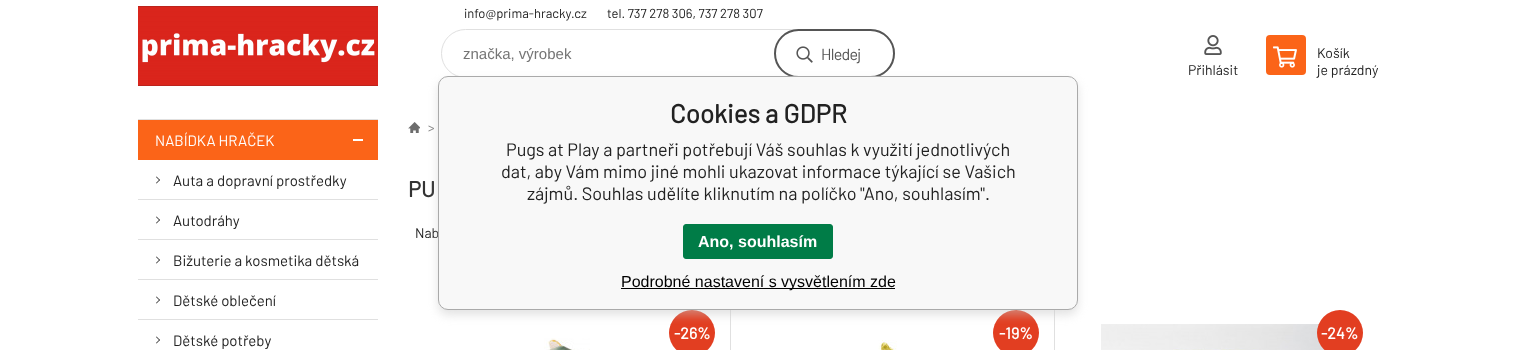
<svg xmlns="http://www.w3.org/2000/svg" width="1516" height="350" viewBox="0 0 1516 350">
  <style>
    .t1 { font: 13px Barlow; fill: #222; }
    .t2 { font: 15px Liberation Sans; fill: #757575; }
    .t3 { font: 16px Barlow; letter-spacing: -0.75px; fill: #555; }
    .t4 { font: 14px Barlow; fill: #222; }
    .t5 { font: 15px Barlow; fill: #fff; }
    .t6 { font: 15px Barlow; fill: #222; }
    .t7 { font: 13px Barlow; fill: #888; }
    .t8 { font: bold 22px Barlow; fill: #333; }
    .t9 { font: bold 16px Barlow; fill: #fff; }
    .t10 { font: bold 26px Barlow; fill: #222; }
    .t11 { font: 18px Barlow; fill: #222; }
    .t12 { font: bold 16px Liberation Sans; fill: #fff; }
    .t13 { font: 16px Liberation Sans; fill: #000; }
  </style>
  <rect width="100%" height="100%" fill="#fff"/>
  <image x="138" y="6" width="240" height="80" href="images/1.png"/>
  <text x="464" y="18" class="t1">info@prima-hracky.cz</text>
  <text x="607" y="18" class="t1">tel. 737 278 306, 737 278 307</text>
  <rect x="441.5" y="29.5" width="453" height="48" rx="24" fill="none" stroke="#e0e0e0"/>
  <text x="463" y="59" class="t2">značka, výrobek</text>
  <image x="796" y="46" width="17" height="17" href="images/2.png"/>
  <rect x="775" y="30" width="119" height="47" rx="23.5" fill="none" stroke="#555" stroke-width="2"/>
  <text x="821" y="60" class="t3">Hledej</text>
  <image x="1204" y="35" width="18" height="20" href="images/3.png"/>
  <text x="1188" y="75" class="t4">Přihlásit</text>
  <rect x="1266" y="35" width="40" height="40" rx="4" fill="#fb6418"/>
  <image x="1273" y="46" width="24" height="22" href="images/4.png"/>
  <text x="1317" y="58" class="t4">Košík</text>
  <text x="1317" y="75" class="t4">je prázdný</text>
  <rect x="138" y="119" width="240" height="1" fill="#e0e0e0"/>
  <rect x="138" y="120" width="240" height="40" fill="#fb6418"/>
  <text x="155" y="146" class="t5">NABÍDKA HRAČEK</text>
  <rect x="353" y="139" width="10" height="2" fill="#fff"/>
  <rect x="138" y="199" width="240" height="1" fill="#e0e0e0"/>
  <path d="M156.5 176.5L160 180L159.5 180.5L156 177Z" fill="#222"/>
  <path d="M159.5 179.5L160 180L156.5 183.5L156 183Z" fill="#222"/>
  <text x="173" y="186" class="t6">Auta a dopravní prostředky</text>
  <rect x="138" y="239" width="240" height="1" fill="#e0e0e0"/>
  <path d="M156.5 216.5L160 220L159.5 220.5L156 217Z" fill="#222"/>
  <path d="M159.5 219.5L160 220L156.5 223.5L156 223Z" fill="#222"/>
  <text x="173" y="226" class="t6">Autodráhy</text>
  <rect x="138" y="279" width="240" height="1" fill="#e0e0e0"/>
  <path d="M156.5 256.5L160 260L159.5 260.5L156 257Z" fill="#222"/>
  <path d="M159.5 259.5L160 260L156.5 263.5L156 263Z" fill="#222"/>
  <text x="173" y="266" class="t6">Bižuterie a kosmetika dětská</text>
  <rect x="138" y="319" width="240" height="1" fill="#e0e0e0"/>
  <path d="M156.5 296.5L160 300L159.5 300.5L156 297Z" fill="#222"/>
  <path d="M159.5 299.5L160 300L156.5 303.5L156 303Z" fill="#222"/>
  <text x="173" y="306" class="t6">Dětské oblečení</text>
  <path d="M156.5 336.5L160 340L159.5 340.5L156 337Z" fill="#222"/>
  <path d="M159.5 339.5L160 340L156.5 343.5L156 343Z" fill="#222"/>
  <text x="173" y="346" class="t6">Dětské potřeby</text>
  <image x="408" y="122" width="12" height="11" href="images/5.png"/>
  <text x="428" y="132" class="t7">&gt;</text>
  <text x="408" y="197" class="t8">PU</text>
  <text x="415" y="238" class="t4">Nab</text>
  <rect x="730" y="310" width="1" height="40" fill="#e0e0e0"/>
  <circle cx="692" cy="333" r="23" fill="#e23e21"/>
  <text x="674" y="339" class="t9">-26%</text>
  <image x="544" y="338" width="46" height="12" href="images/6.png"/>
  <rect x="1054" y="310" width="1" height="40" fill="#e0e0e0"/>
  <circle cx="1016" cy="333" r="23" fill="#e23e21"/>
  <text x="999" y="339" class="t9">-19%</text>
  <image x="878" y="340" width="19" height="10" href="images/7.png"/>
  <image x="1101" y="324" width="224" height="26" href="images/8.png"/>
  <circle cx="1340" cy="333" r="23" fill="#e23e21"/>
  <text x="1321" y="339" class="t9">-24%</text>
  <rect x="438" y="81" width="640" height="234" rx="10" fill="#c8c8c880" filter="blur(5px)"/>
  <rect x="438.5" y="76.5" width="639" height="233" rx="9.5" fill="#f8f8f8" stroke="#aaa"/>
  <text x="670" y="123" class="t10">Cookies a GDPR</text>
  <text x="506" y="156" class="t11">Pugs at Play a partneři potřebují Váš souhlas k využití jednotlivých</text>
  <text x="501" y="178" class="t11">dat, aby Vám mimo jiné mohli ukazovat informace týkající se Vašich</text>
  <text x="527" y="200" class="t11">zájmů. Souhlas udělíte kliknutím na políčko "Ano, souhlasím".</text>
  <rect x="683.5" y="224.5" width="149" height="34" rx="2.5" fill="#007c47" stroke="#007c47"/>
  <text x="698" y="247" class="t12">Ano, souhlasím</text>
  <rect x="621" y="288" width="274" height="1" fill="#000"/>
  <text x="621" y="287" class="t13">Podrobné nastavení s vysvětlením zde</text>
</svg>
